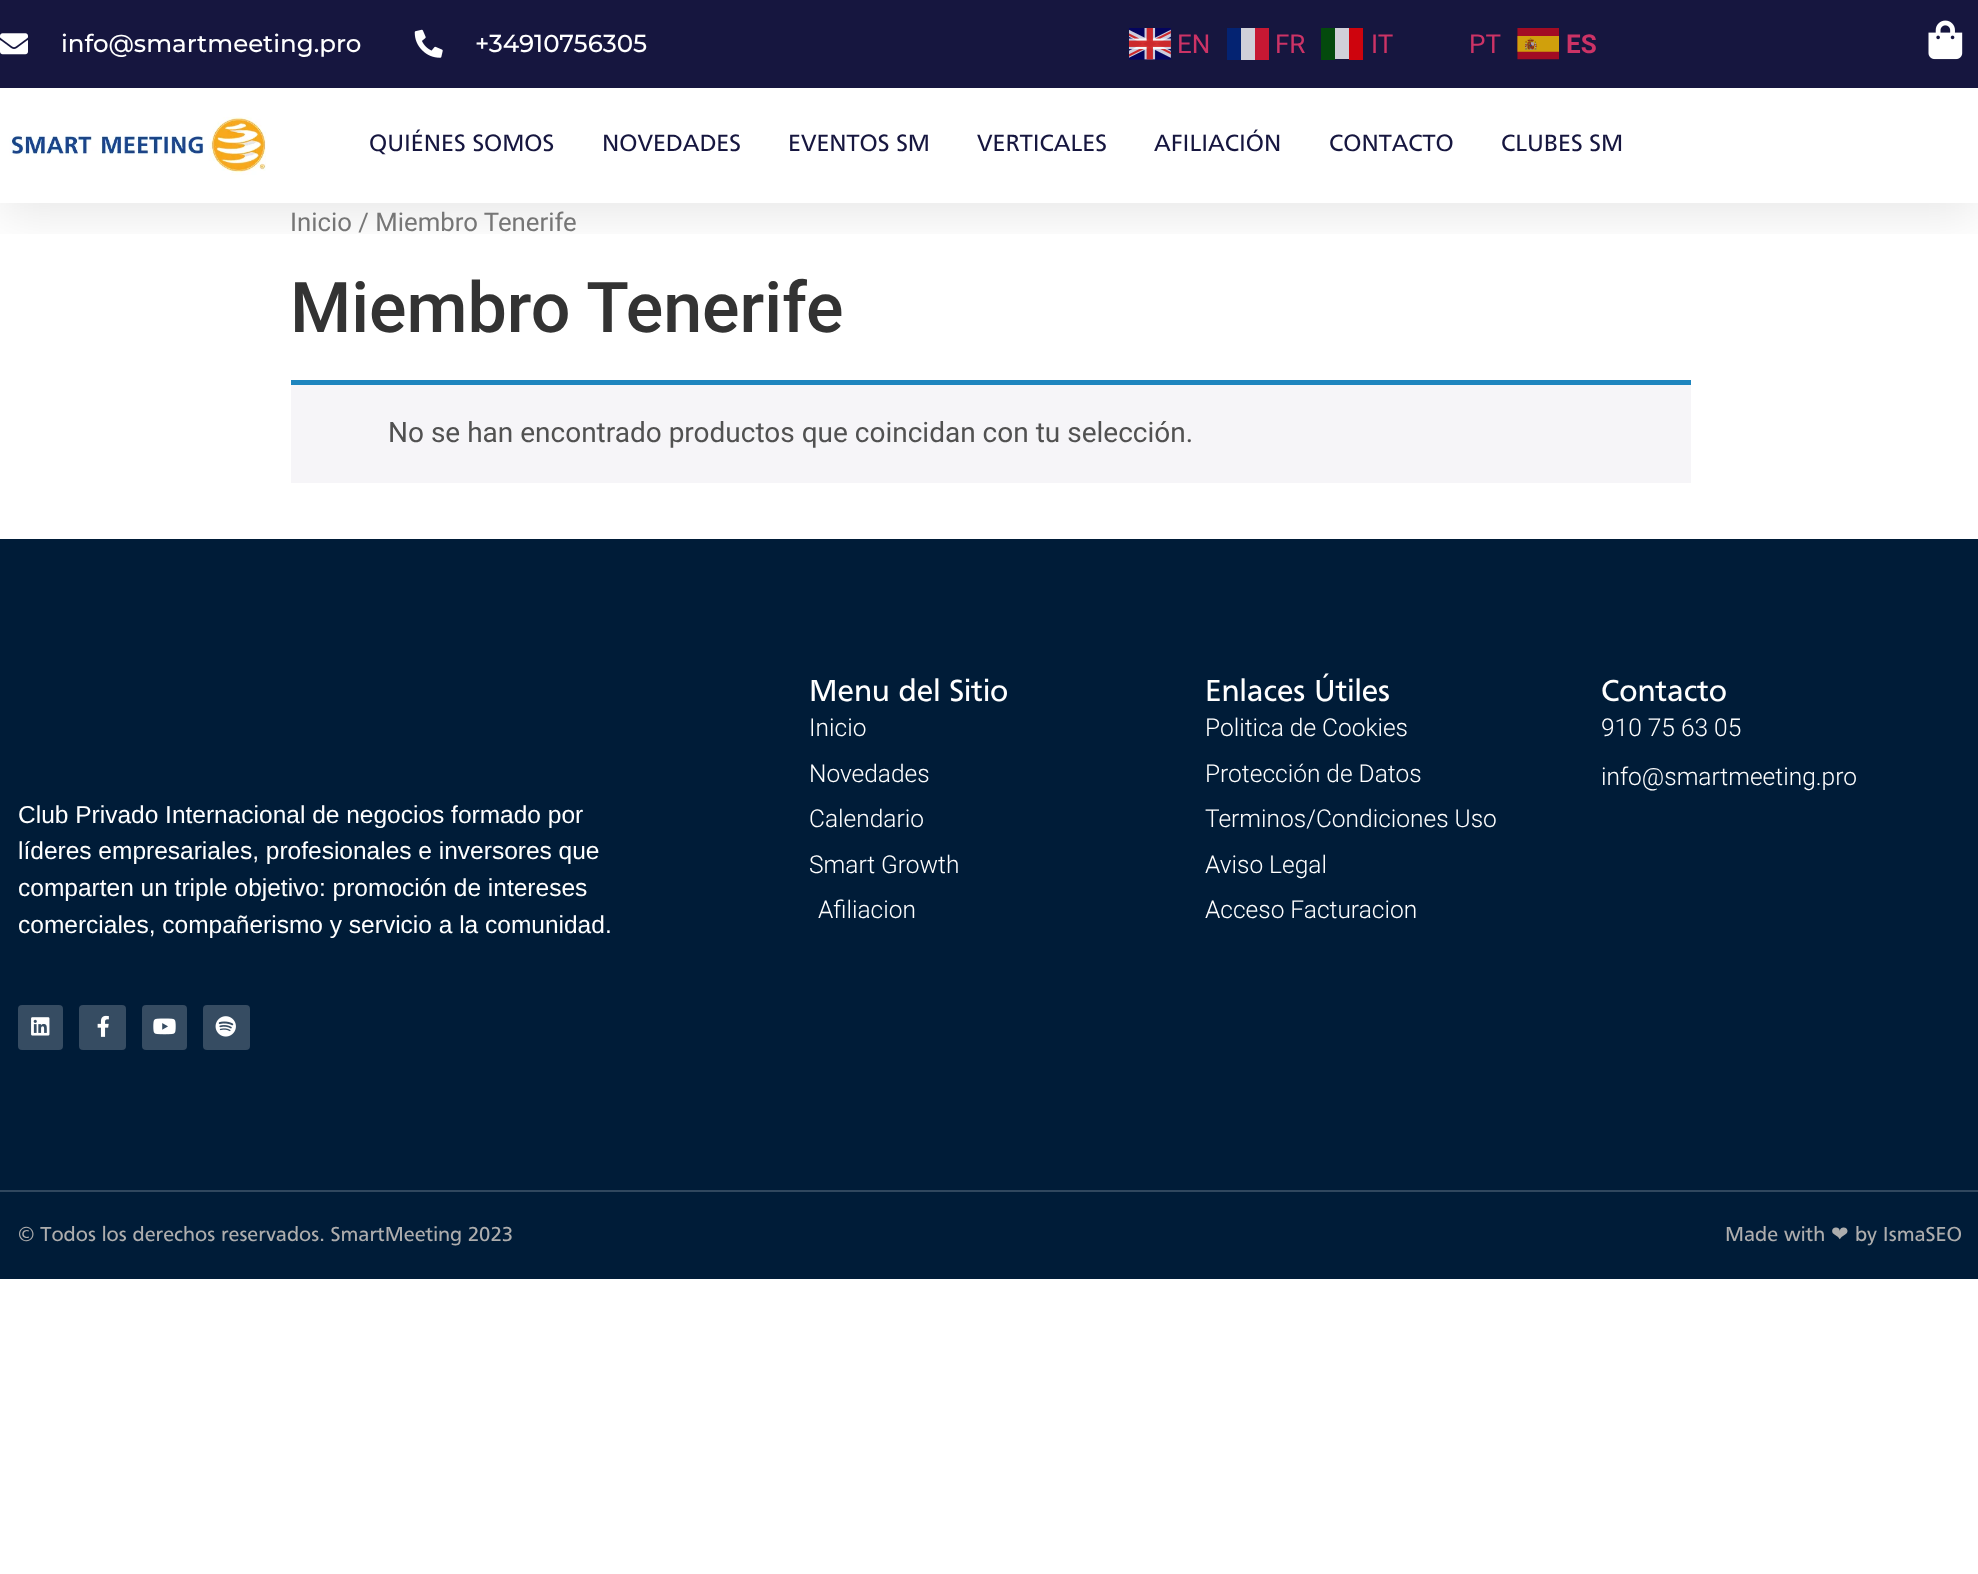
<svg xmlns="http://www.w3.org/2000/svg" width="1978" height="1574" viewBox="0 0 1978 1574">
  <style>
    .t1 { font: 500 24.5px Montserrat; fill: #fff; }
    .t2 { font: 26px Roboto; fill: #c36; }
    .t3 { font: bold 26px Roboto; fill: #c36; }
    .t4 { font: 24.5px Frutiger; fill: #16163f; }
    .t5 { font: 25.75px Roboto; fill: #767676; }
    .t6 { font: 500 70px Roboto; fill: #333; }
    .t7 { font: 28px Roboto; fill: #515151; }
    .t8 { font: 31.5px Frutiger; fill: #fff; }
    .t9 { font: 300 24.5px Roboto; fill: #fff; }
    .t10 { font: 24.5px Liberation Sans; fill: #fff; }
    .t11 { font: 21px Frutiger; fill: #adadad; }
    .t12 { font: 21px DejaVu Sans; fill: #adadad; }
  </style>
  <defs>
    <clipPath id="clip1"><rect x="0" y="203" width="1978" height="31"/></clipPath>
  </defs>
  <rect width="100%" height="100%" fill="#fff"/>
  <g clip-path="url(#clip1)">
    <rect x="0" y="9" width="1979" height="203" fill="#0000001a" filter="blur(26px)"/>
  </g>
  <rect x="0" y="0" width="1978" height="88" fill="#16163f"/>
  <image x="0" y="33" width="28" height="22" href="images/1.png"/>
  <text x="61" y="52" class="t1">info@smartmeeting.pro</text>
  <image x="414" y="29" width="29" height="29" href="images/2.png"/>
  <text x="475" y="52" class="t1">+34910756305</text>
  <image x="1129" y="28" width="42" height="32" href="images/3.png"/>
  <text x="1177" y="53" class="t2">EN</text>
  <text x="1275" y="53" class="t2">FR</text>
  <rect x="1241" y="28" width="14" height="32" fill="#d0d0d9"/>
  <rect x="1227" y="28" width="14" height="32" fill="#042372"/>
  <rect x="1255" y="28" width="14" height="32" fill="#c71833"/>
  <text x="1371" y="53" class="t2">IT</text>
  <rect x="1335" y="28" width="14" height="31" fill="#d0d0d9"/>
  <rect x="1321" y="28" width="14" height="32" fill="#044a0d"/>
  <rect x="1349" y="28" width="14" height="32" fill="#ce040d"/>
  <text x="1469" y="53" class="t2">PT</text>
  <image x="1517" y="28" width="42" height="32" href="images/4.png"/>
  <text x="1566" y="53" class="t3">ES</text>
  <image x="1928" y="20" width="35" height="40" href="images/5.png"/>
  <image x="9" y="117" width="257" height="58" href="images/6.png"/>
  <text x="369" y="151" class="t4">QUIÉNES SOMOS</text>
  <text x="602" y="151" class="t4">NOVEDADES</text>
  <text x="788" y="151" class="t4">EVENTOS SM</text>
  <text x="977" y="151" class="t4">VERTICALES</text>
  <text x="1154" y="151" class="t4">AFILIACIÓN</text>
  <text x="1329" y="151" class="t4">CONTACTO</text>
  <text x="1501" y="151" class="t4">CLUBES SM</text>
  <text x="290" y="231" class="t5">Inicio / Miembro Tenerife</text>
  <text x="290" y="332" class="t6">Miembro Tenerife</text>
  <rect x="291" y="385" width="1400" height="98" fill="#f6f5f8"/>
  <rect x="291" y="380" width="1400" height="5" fill="#1e85be"/>
  <text x="388" y="442" class="t7">No se han encontrado productos que coincidan con tu selección.</text>
  <rect x="0" y="539" width="1978" height="651" fill="#001c38"/>
  <text x="809" y="701" class="t8">Menu del Sitio</text>
  <text x="809" y="736" class="t9">Inicio</text>
  <text x="809" y="782" class="t9">Novedades</text>
  <text x="809" y="827" class="t9">Calendario</text>
  <text x="809" y="873" class="t9">Smart Growth</text>
  <text x="818" y="918" class="t9">Afiliacion</text>
  <text x="1205" y="701" class="t8">Enlaces Útiles</text>
  <text x="1205" y="736" class="t9">Politica de Cookies</text>
  <text x="1205" y="782" class="t9">Protección de Datos</text>
  <text x="1205" y="827" class="t9">Terminos/Condiciones Uso</text>
  <text x="1205" y="873" class="t9">Aviso Legal</text>
  <text x="1205" y="918" class="t9">Acceso Facturacion</text>
  <text x="1601" y="701" class="t8">Contacto</text>
  <text x="1601" y="736" class="t9">910 75 63 05</text>
  <text x="1601" y="785" class="t9">info@smartmeeting.pro</text>
  <text x="18" y="823" class="t10">Club Privado Internacional de negocios formado por</text>
  <text x="18" y="859" class="t10">líderes empresariales, profesionales e inversores que</text>
  <text x="18" y="896" class="t10">comparten un triple objetivo: promoción de intereses</text>
  <text x="18" y="933" class="t10">comerciales, compañerismo y servicio a la comunidad.</text>
  <rect x="18" y="1005" width="45" height="45" rx="4" fill="#364c62"/>
  <image x="31" y="1017" width="19" height="19" href="images/7.png"/>
  <rect x="79" y="1005" width="47" height="45" rx="4" fill="#364c62"/>
  <image x="97" y="1015" width="12" height="22" href="images/8.png"/>
  <rect x="142" y="1005" width="45" height="45" rx="4" fill="#364c62"/>
  <image x="153" y="1018" width="23" height="17" href="images/9.png"/>
  <rect x="203" y="1005" width="47" height="45" rx="4" fill="#364c62"/>
  <image x="215" y="1016" width="21" height="21" href="images/10.png"/>
  <rect x="0" y="1192" width="1978" height="87" fill="#001c38"/>
  <rect x="0" y="1190" width="1978" height="2" fill="#30475e"/>
  <text x="18" y="1241" class="t11">© Todos los derechos reservados. SmartMeeting 2023</text>
  <text x="1725" y="1241" class="t11">Made with</text>
  <text x="1831" y="1241" class="t12">❤</text>
  <text x="1855" y="1241" class="t11">by IsmaSEO</text>
</svg>
